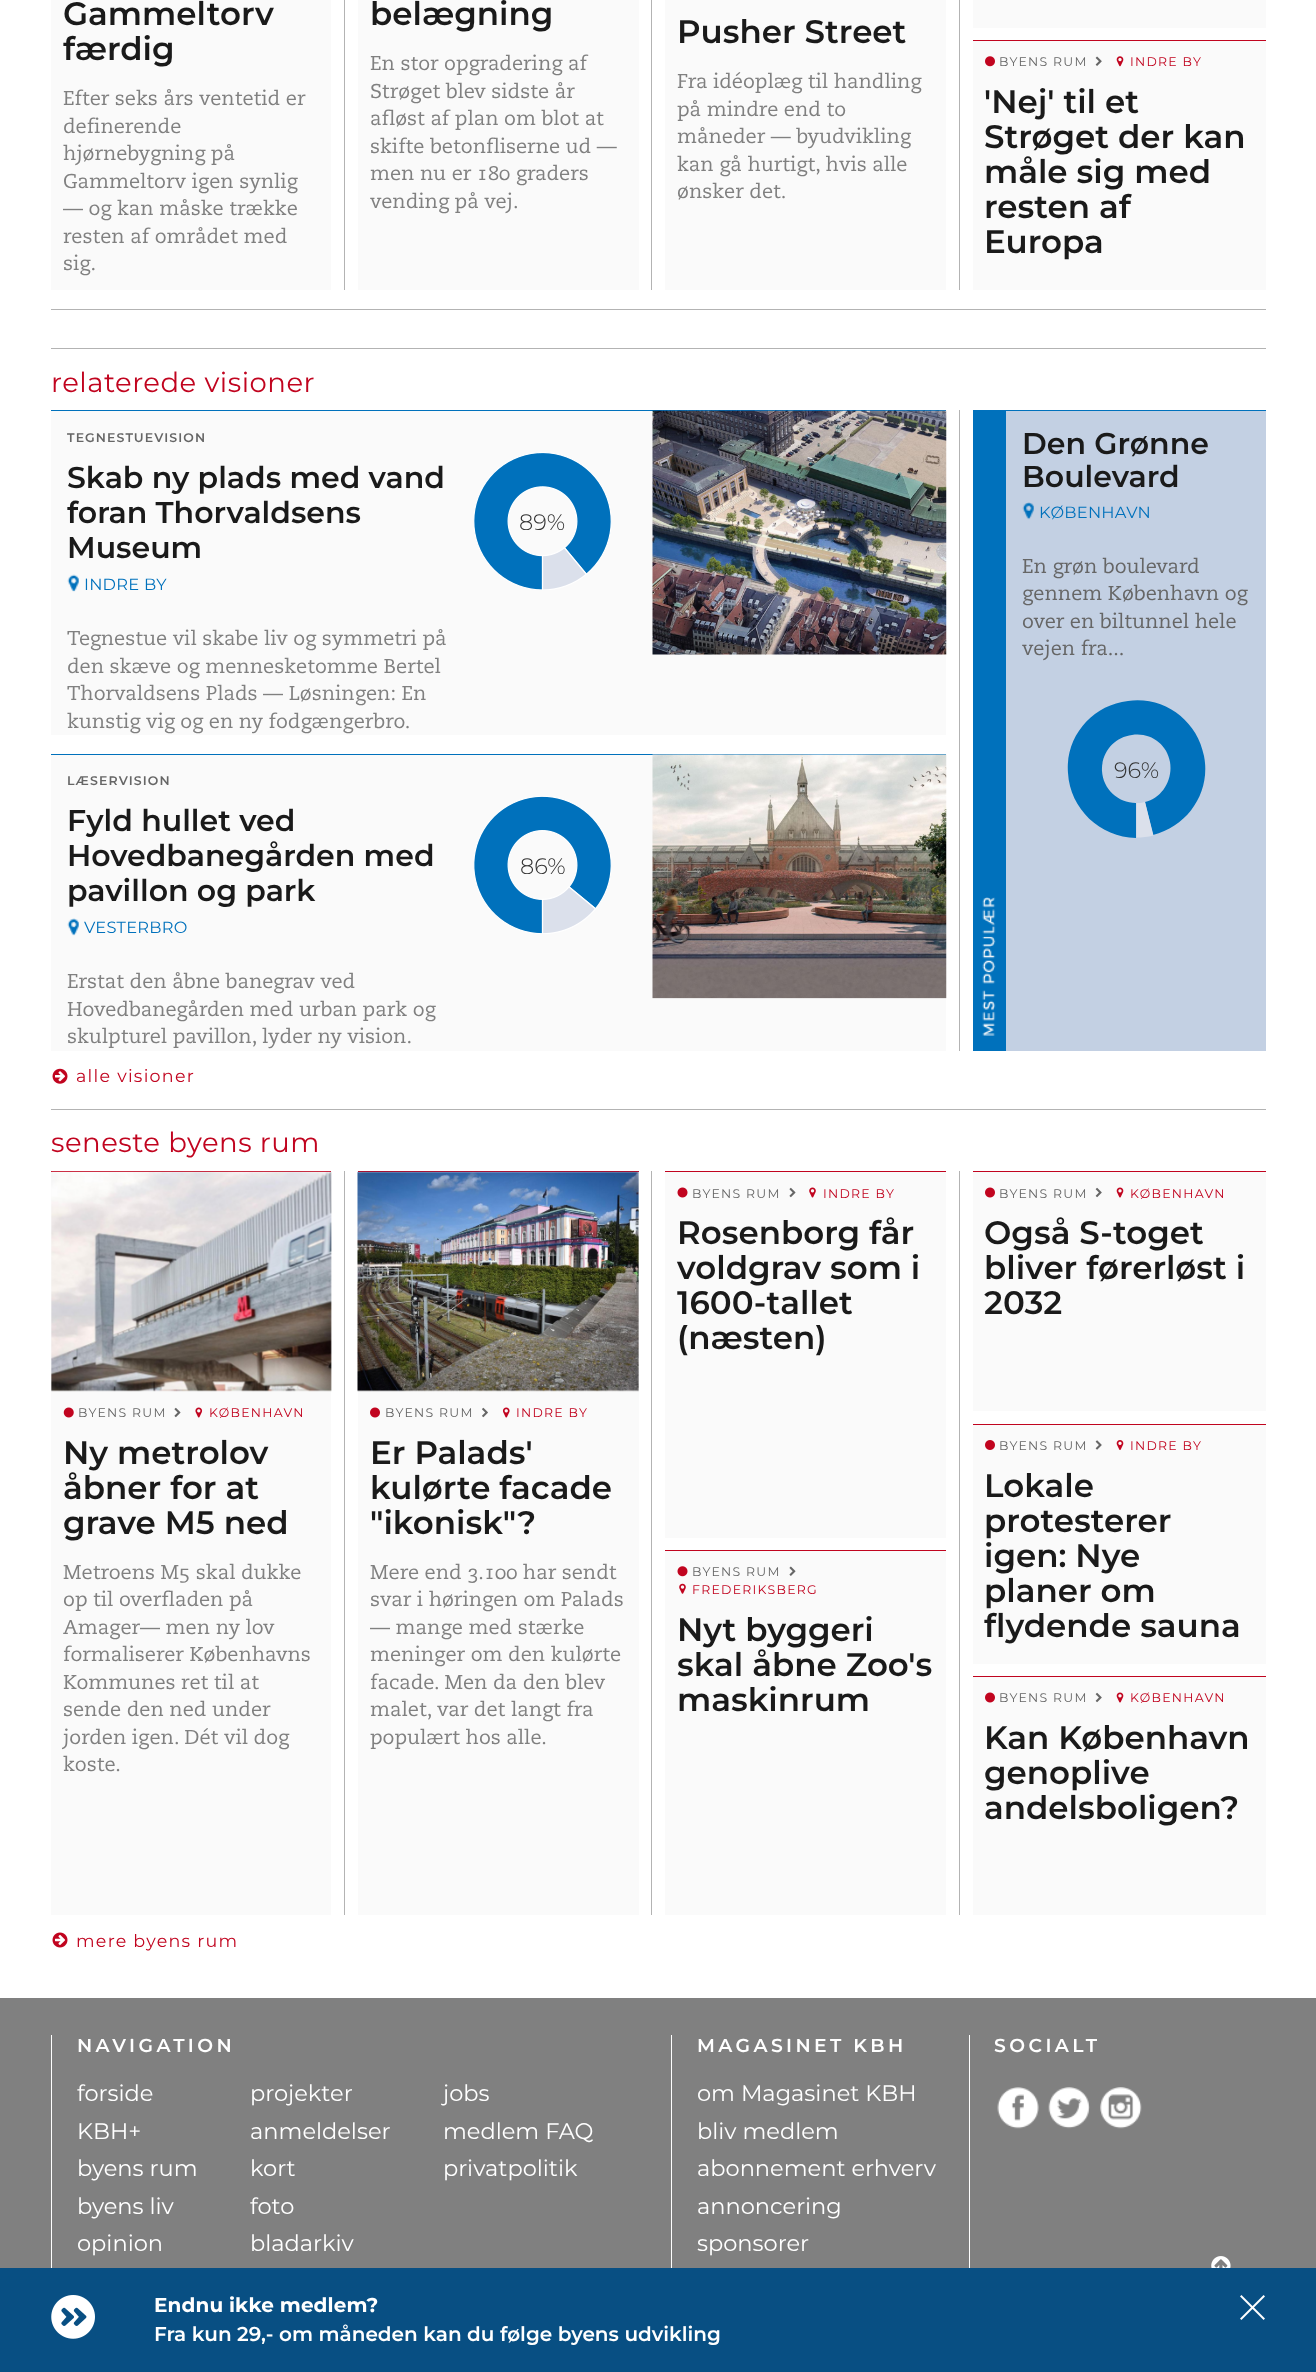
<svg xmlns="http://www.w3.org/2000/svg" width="1316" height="2372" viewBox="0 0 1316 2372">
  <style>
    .t1 { font: 600 32.5px Montserrat; fill: #1a1a1a; }
    .t2 { font: 20px 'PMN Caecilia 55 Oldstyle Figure'; fill: #808080; }
    .t3 { font: 12.5px Montserrat; letter-spacing: 1.25px; fill: #666; }
    .t4 { font: 12.5px Montserrat; letter-spacing: 1.25px; fill: #c1041f; }
    .t5 { font: 27.5px Montserrat; letter-spacing: 0.5px; fill: #c1041f; }
    .t6 { font: 600 12.5px Montserrat; letter-spacing: 1.1px; fill: #666; }
    .t7 { font: 600 30px Montserrat; fill: #1a1a1a; }
    .t8 { font: 16.25px Montserrat; letter-spacing: 0.25px; fill: #0071bc; }
    .t9 { font: 300 22.5px Montserrat; fill: #333; }
    .t10 { font: 20px 'PMN Caecilia 55 Oldstyle Figure'; fill: #666; }
    .t11 { font: 17.5px Montserrat; letter-spacing: 1.25px; fill: #c1041f; }
    .t12 { font: 600 18.75px Montserrat; letter-spacing: 3.4px; fill: #fff; }
    .t13 { font: 22.5px Montserrat; fill: #fff; }
    .t14 { font: bold 20px Montserrat; letter-spacing: 0.1px; fill: #fff; }
    .t15 { font: 600 20px Montserrat; fill: #fff; }
  </style>
  <rect width="100%" height="100%" fill="#fff"/>
  <rect x="344" y="0" width="1" height="290" fill="#b3b3b3"/>
  <rect x="51" y="0" width="280" height="290" fill="#fafafa"/>
  <text x="63" y="25" class="t1">Gammeltorv</text>
  <text x="63" y="60" class="t1">færdig</text>
  <text x="63" y="105" class="t2">Efter seks års ventetid er</text>
  <text x="63" y="133" class="t2">definerende</text>
  <text x="63" y="160" class="t2">hjørnebygning på</text>
  <text x="63" y="188" class="t2">Gammeltorv igen synlig</text>
  <text x="63" y="215" class="t2">— og kan måske trække</text>
  <text x="63" y="243" class="t2">resten af området med</text>
  <text x="63" y="270" class="t2">sig.</text>
  <rect x="651" y="0" width="1" height="290" fill="#b3b3b3"/>
  <rect x="358" y="0" width="281" height="290" fill="#fafafa"/>
  <text x="370" y="25" class="t1">belægning</text>
  <text x="370" y="70" class="t2">En stor opgradering af</text>
  <text x="370" y="98" class="t2">Strøget blev sidste år</text>
  <text x="370" y="125" class="t2">afløst af plan om blot at</text>
  <text x="370" y="153" class="t2">skifte betonfliserne ud —</text>
  <text x="370" y="180" class="t2">men nu er 180 graders</text>
  <text x="370" y="208" class="t2">vending på vej.</text>
  <rect x="959" y="0" width="1" height="290" fill="#b3b3b3"/>
  <rect x="665" y="0" width="281" height="290" fill="#fafafa"/>
  <text x="677" y="43" class="t1">Pusher Street</text>
  <text x="677" y="88" class="t2">Fra idéoplæg til handling</text>
  <text x="677" y="116" class="t2">på mindre end to</text>
  <text x="677" y="143" class="t2">måneder — byudvikling</text>
  <text x="677" y="171" class="t2">kan gå hurtigt, hvis alle</text>
  <text x="677" y="198" class="t2">ønsker det.</text>
  <rect x="973" y="0" width="293" height="28" fill="#fafafa"/>
  <rect x="973" y="41" width="293" height="249" fill="#fafafa"/>
  <rect x="973" y="40" width="293" height="1" fill="#c1041f"/>
  <image x="985" y="56" width="10" height="11" href="images/1.png"/>
  <text x="999" y="66" class="t3">BYENS RUM</text>
  <image x="1095" y="56" width="7" height="10" href="images/2.png"/>
  <image x="1116" y="56" width="8" height="11" href="images/3.png"/>
  <text x="1130" y="66" class="t4">INDRE BY</text>
  <text x="984" y="113" class="t1">'Nej' til et</text>
  <text x="984" y="148" class="t1">Strøget der kan</text>
  <text x="984" y="183" class="t1">måle sig med</text>
  <text x="984" y="218" class="t1">resten af</text>
  <text x="984" y="253" class="t1">Europa</text>
  <rect x="51" y="309" width="1215" height="1" fill="#b3b3b3"/>
  <rect x="51" y="348" width="1215" height="1" fill="#b3b3b3"/>
  <text x="51" y="392" class="t5">relaterede visioner</text>
  <rect x="51" y="411" width="895" height="324" fill="#fafafa"/>
  <rect x="51" y="410" width="895" height="1" fill="#0071bc"/>
  <text x="67" y="442" class="t6">TEGNESTUEVISION</text>
  <text x="67" y="488" class="t7">Skab ny plads med vand</text>
  <text x="67" y="523" class="t7">foran Thorvaldsens</text>
  <text x="67" y="558" class="t7">Museum</text>
  <image x="67" y="574" width="12" height="18" href="images/4.png"/>
  <text x="84" y="590" class="t8">INDRE BY</text>
  <text x="67" y="645" class="t2">Tegnestue vil skabe liv og symmetri på</text>
  <text x="67" y="673" class="t2">den skæve og mennesketomme Bertel</text>
  <text x="67" y="700" class="t2">Thorvaldsens Plads — Løsningen: En</text>
  <text x="67" y="728" class="t2">kunstig vig og en ny fodgængerbro.</text>
  <image x="473" y="452" width="139" height="138" href="images/5.png"/>
  <text x="519" y="530" class="t9">89%</text>
  <image x="652" y="410" width="295" height="245" href="images/6.png"/>
  <rect x="51" y="755" width="895" height="296" fill="#fafafa"/>
  <rect x="51" y="754" width="895" height="1" fill="#0071bc"/>
  <text x="67" y="785" class="t6">LÆSERVISION</text>
  <text x="67" y="831" class="t7">Fyld hullet ved</text>
  <text x="67" y="866" class="t7">Hovedbanegården med</text>
  <text x="67" y="901" class="t7">pavillon og park</text>
  <image x="67" y="918" width="12" height="18" href="images/7.png"/>
  <text x="84" y="933" class="t8">VESTERBRO</text>
  <text x="67" y="988" class="t2">Erstat den åbne banegrav ved</text>
  <text x="67" y="1016" class="t2">Hovedbanegården med urban park og</text>
  <text x="67" y="1043" class="t2">skulpturel pavillon, lyder ny vision.</text>
  <image x="473" y="796" width="139" height="138" href="images/8.png"/>
  <text x="520" y="874" class="t9">86%</text>
  <image x="652" y="754" width="295" height="245" href="images/9.png"/>
  <rect x="959" y="410" width="1" height="641" fill="#b3b3b3"/>
  <rect x="1006" y="411" width="260" height="640" fill="#c3d0e3"/>
  <rect x="1006" y="410" width="260" height="1" fill="#0071bc"/>
  <rect x="973" y="410" width="33" height="641" fill="#0071bc"/>
  <text x="1022" y="454" class="t7">Den Grønne</text>
  <text x="1022" y="487" class="t7">Boulevard</text>
  <image x="1022" y="502" width="12" height="18" href="images/10.png"/>
  <text x="1039" y="518" class="t8">KØBENHAVN</text>
  <text x="1022" y="573" class="t10">En grøn boulevard</text>
  <text x="1022" y="600" class="t10">gennem København og</text>
  <text x="1022" y="628" class="t10">over en biltunnel hele</text>
  <text x="1022" y="655" class="t10">vejen fra...</text>
  <path d="M1136 838C1100 837 1070 809 1068 773C1065 737 1092 705 1128 701C1164 696 1197 720 1204 756C1211 791 1189 826 1153 835L1145 802C1162 798 1173 780 1170 762C1167 744 1150 732 1132 735C1114 737 1101 753 1102 771C1103 789 1118 803 1136 803Z" fill="#0071bc"/>
  <text x="1114" y="778" class="t9">96%</text>
  <path d="M1153.5 835.5C1148 837 1142 837.5 1136.5 837.5V803C1139 803 1142 803 1145 802Z" fill="#dbe0eb"/>
  <image x="982" y="897" width="14" height="139" href="images/11.png"/>
  <image x="52" y="1068" width="16" height="16" href="images/12.png"/>
  <text x="76" y="1082" class="t11">alle visioner</text>
  <rect x="51" y="1109" width="1215" height="1" fill="#b3b3b3"/>
  <text x="51" y="1152" class="t5">seneste byens rum</text>
  <rect x="344" y="1171" width="1" height="744" fill="#b3b3b3"/>
  <rect x="51" y="1172" width="280" height="743" fill="#fafafa"/>
  <rect x="51" y="1171" width="280" height="1" fill="#c1041f"/>
  <image x="51" y="1171" width="281" height="221" href="images/13.png"/>
  <image x="63" y="1407" width="11" height="11" href="images/14.png"/>
  <text x="78" y="1417" class="t3">BYENS RUM</text>
  <image x="174" y="1407" width="7" height="11" href="images/15.png"/>
  <image x="195" y="1407" width="8" height="11" href="images/16.png"/>
  <text x="209" y="1417" class="t4">KØBENHAVN</text>
  <text x="63" y="1464" class="t1">Ny metrolov</text>
  <text x="63" y="1499" class="t1">åbner for at</text>
  <text x="63" y="1534" class="t1">grave M5 ned</text>
  <text x="63" y="1579" class="t2">Metroens M5 skal dukke</text>
  <text x="63" y="1606" class="t2">op til overfladen på</text>
  <text x="63" y="1634" class="t2">Amager— men ny lov</text>
  <text x="63" y="1661" class="t2">formaliserer Københavns</text>
  <text x="63" y="1689" class="t2">Kommunes ret til at</text>
  <text x="63" y="1716" class="t2">sende den ned under</text>
  <text x="63" y="1744" class="t2">jorden igen. Dét vil dog</text>
  <text x="63" y="1771" class="t2">koste.</text>
  <rect x="651" y="1171" width="1" height="744" fill="#b3b3b3"/>
  <rect x="358" y="1172" width="281" height="743" fill="#fafafa"/>
  <rect x="358" y="1171" width="281" height="1" fill="#c1041f"/>
  <image x="357" y="1171" width="282" height="221" href="images/17.png"/>
  <image x="370" y="1407" width="10" height="11" href="images/18.png"/>
  <text x="385" y="1417" class="t3">BYENS RUM</text>
  <image x="482" y="1407" width="6" height="11" href="images/19.png"/>
  <image x="502" y="1407" width="8" height="11" href="images/20.png"/>
  <text x="516" y="1417" class="t4">INDRE BY</text>
  <text x="370" y="1464" class="t1">Er Palads'</text>
  <text x="370" y="1499" class="t1">kulørte facade</text>
  <text x="370" y="1534" class="t1">"ikonisk"?</text>
  <text x="370" y="1579" class="t2">Mere end 3.100 har sendt</text>
  <text x="370" y="1606" class="t2">svar i høringen om Palads</text>
  <text x="370" y="1634" class="t2">— mange med stærke</text>
  <text x="370" y="1661" class="t2">meninger om den kulørte</text>
  <text x="370" y="1689" class="t2">facade. Men da den blev</text>
  <text x="370" y="1716" class="t2">malet, var det langt fra</text>
  <text x="370" y="1744" class="t2">populært hos alle.</text>
  <rect x="959" y="1171" width="1" height="744" fill="#b3b3b3"/>
  <rect x="665" y="1172" width="281" height="366" fill="#fafafa"/>
  <rect x="665" y="1171" width="281" height="1" fill="#c1041f"/>
  <image x="677" y="1187" width="11" height="11" href="images/21.png"/>
  <text x="692" y="1198" class="t3">BYENS RUM</text>
  <image x="789" y="1187" width="7" height="11" href="images/15.png"/>
  <image x="809" y="1187" width="7" height="11" href="images/22.png"/>
  <text x="823" y="1198" class="t4">INDRE BY</text>
  <text x="677" y="1244" class="t1">Rosenborg får</text>
  <text x="677" y="1279" class="t1">voldgrav som i</text>
  <text x="677" y="1314" class="t1">1600-tallet</text>
  <text x="677" y="1349" class="t1">(næsten)</text>
  <rect x="665" y="1551" width="281" height="364" fill="#fafafa"/>
  <rect x="665" y="1550" width="281" height="1" fill="#c1041f"/>
  <image x="677" y="1566" width="11" height="11" href="images/23.png"/>
  <text x="692" y="1576" class="t3">BYENS RUM</text>
  <image x="789" y="1566" width="7" height="10" href="images/24.png"/>
  <image x="679" y="1583" width="7" height="11" href="images/25.png"/>
  <text x="692" y="1594" class="t4">FREDERIKSBERG</text>
  <text x="677" y="1641" class="t1">Nyt byggeri</text>
  <text x="677" y="1676" class="t1">skal åbne Zoo's</text>
  <text x="677" y="1711" class="t1">maskinrum</text>
  <rect x="973" y="1172" width="293" height="239" fill="#fafafa"/>
  <rect x="973" y="1171" width="293" height="1" fill="#c1041f"/>
  <image x="985" y="1187" width="10" height="11" href="images/18.png"/>
  <text x="999" y="1198" class="t3">BYENS RUM</text>
  <image x="1095" y="1187" width="7" height="11" href="images/26.png"/>
  <image x="1116" y="1187" width="8" height="11" href="images/27.png"/>
  <text x="1130" y="1198" class="t4">KØBENHAVN</text>
  <text x="984" y="1244" class="t1">Også S-toget</text>
  <text x="984" y="1279" class="t1">bliver førerløst i</text>
  <text x="984" y="1314" class="t1">2032</text>
  <rect x="973" y="1425" width="293" height="239" fill="#fafafa"/>
  <rect x="973" y="1424" width="293" height="1" fill="#c1041f"/>
  <image x="985" y="1440" width="10" height="10" href="images/28.png"/>
  <text x="999" y="1450" class="t3">BYENS RUM</text>
  <image x="1095" y="1440" width="7" height="10" href="images/29.png"/>
  <image x="1116" y="1440" width="8" height="10" href="images/30.png"/>
  <text x="1130" y="1450" class="t4">INDRE BY</text>
  <text x="984" y="1497" class="t1">Lokale</text>
  <text x="984" y="1532" class="t1">protesterer</text>
  <text x="984" y="1567" class="t1">igen: Nye</text>
  <text x="984" y="1602" class="t1">planer om</text>
  <text x="984" y="1637" class="t1">flydende sauna</text>
  <rect x="973" y="1677" width="293" height="238" fill="#fafafa"/>
  <rect x="973" y="1676" width="293" height="1" fill="#c1041f"/>
  <image x="985" y="1692" width="10" height="11" href="images/18.png"/>
  <text x="999" y="1702" class="t3">BYENS RUM</text>
  <image x="1095" y="1692" width="7" height="11" href="images/26.png"/>
  <image x="1116" y="1692" width="8" height="11" href="images/27.png"/>
  <text x="1130" y="1702" class="t4">KØBENHAVN</text>
  <text x="984" y="1749" class="t1">Kan København</text>
  <text x="984" y="1784" class="t1">genoplive</text>
  <text x="984" y="1819" class="t1">andelsboligen?</text>
  <image x="52" y="1932" width="16" height="16" href="images/31.png"/>
  <text x="76" y="1947" class="t11">mere byens rum</text>
  <rect x="0" y="1998" width="1316" height="270" fill="#808080"/>
  <rect x="51" y="2035" width="1" height="233" fill="#fff"/>
  <text x="77" y="2052" class="t12">NAVIGATION</text>
  <text x="77" y="2101" class="t13">forside</text>
  <text x="250" y="2101" class="t13">projekter</text>
  <text x="443" y="2101" class="t13">jobs</text>
  <text x="77" y="2139" class="t13">KBH+</text>
  <text x="250" y="2139" class="t13">anmeldelser</text>
  <text x="443" y="2139" class="t13">medlem FAQ</text>
  <text x="77" y="2176" class="t13">byens rum</text>
  <text x="250" y="2176" class="t13">kort</text>
  <text x="443" y="2176" class="t13">privatpolitik</text>
  <text x="77" y="2214" class="t13">byens liv</text>
  <text x="250" y="2214" class="t13">foto</text>
  <text x="77" y="2251" class="t13">opinion</text>
  <text x="250" y="2251" class="t13">bladarkiv</text>
  <rect x="671" y="2035" width="1" height="233" fill="#fff"/>
  <text x="697" y="2052" class="t12">MAGASINET KBH</text>
  <text x="697" y="2101" class="t13">om Magasinet KBH</text>
  <text x="697" y="2139" class="t13">bliv medlem</text>
  <text x="697" y="2176" class="t13">abonnement erhverv</text>
  <text x="697" y="2214" class="t13">annoncering</text>
  <text x="697" y="2251" class="t13">sponsorer</text>
  <rect x="969" y="2035" width="1" height="233" fill="#fff"/>
  <text x="994" y="2052" class="t12">SOCIALT</text>
  <image x="997" y="2087" width="42" height="42" href="images/32.png"/>
  <image x="1048" y="2087" width="42" height="42" href="images/33.png"/>
  <image x="1100" y="2087" width="42" height="42" href="images/34.png"/>
  <image x="1211" y="2256" width="20" height="12" href="images/35.png"/>
  <rect x="0" y="2268" width="1316" height="104" fill="#084f83"/>
  <image x="51" y="2295" width="44" height="44" href="images/36.png"/>
  <text x="154" y="2312" class="t14">Endnu ikke medlem?</text>
  <text x="154" y="2341" class="t15">Fra kun 29,- om måneden kan du følge byens udvikling</text>
  <image x="1240" y="2295" width="25" height="25" href="images/37.png"/>
</svg>
